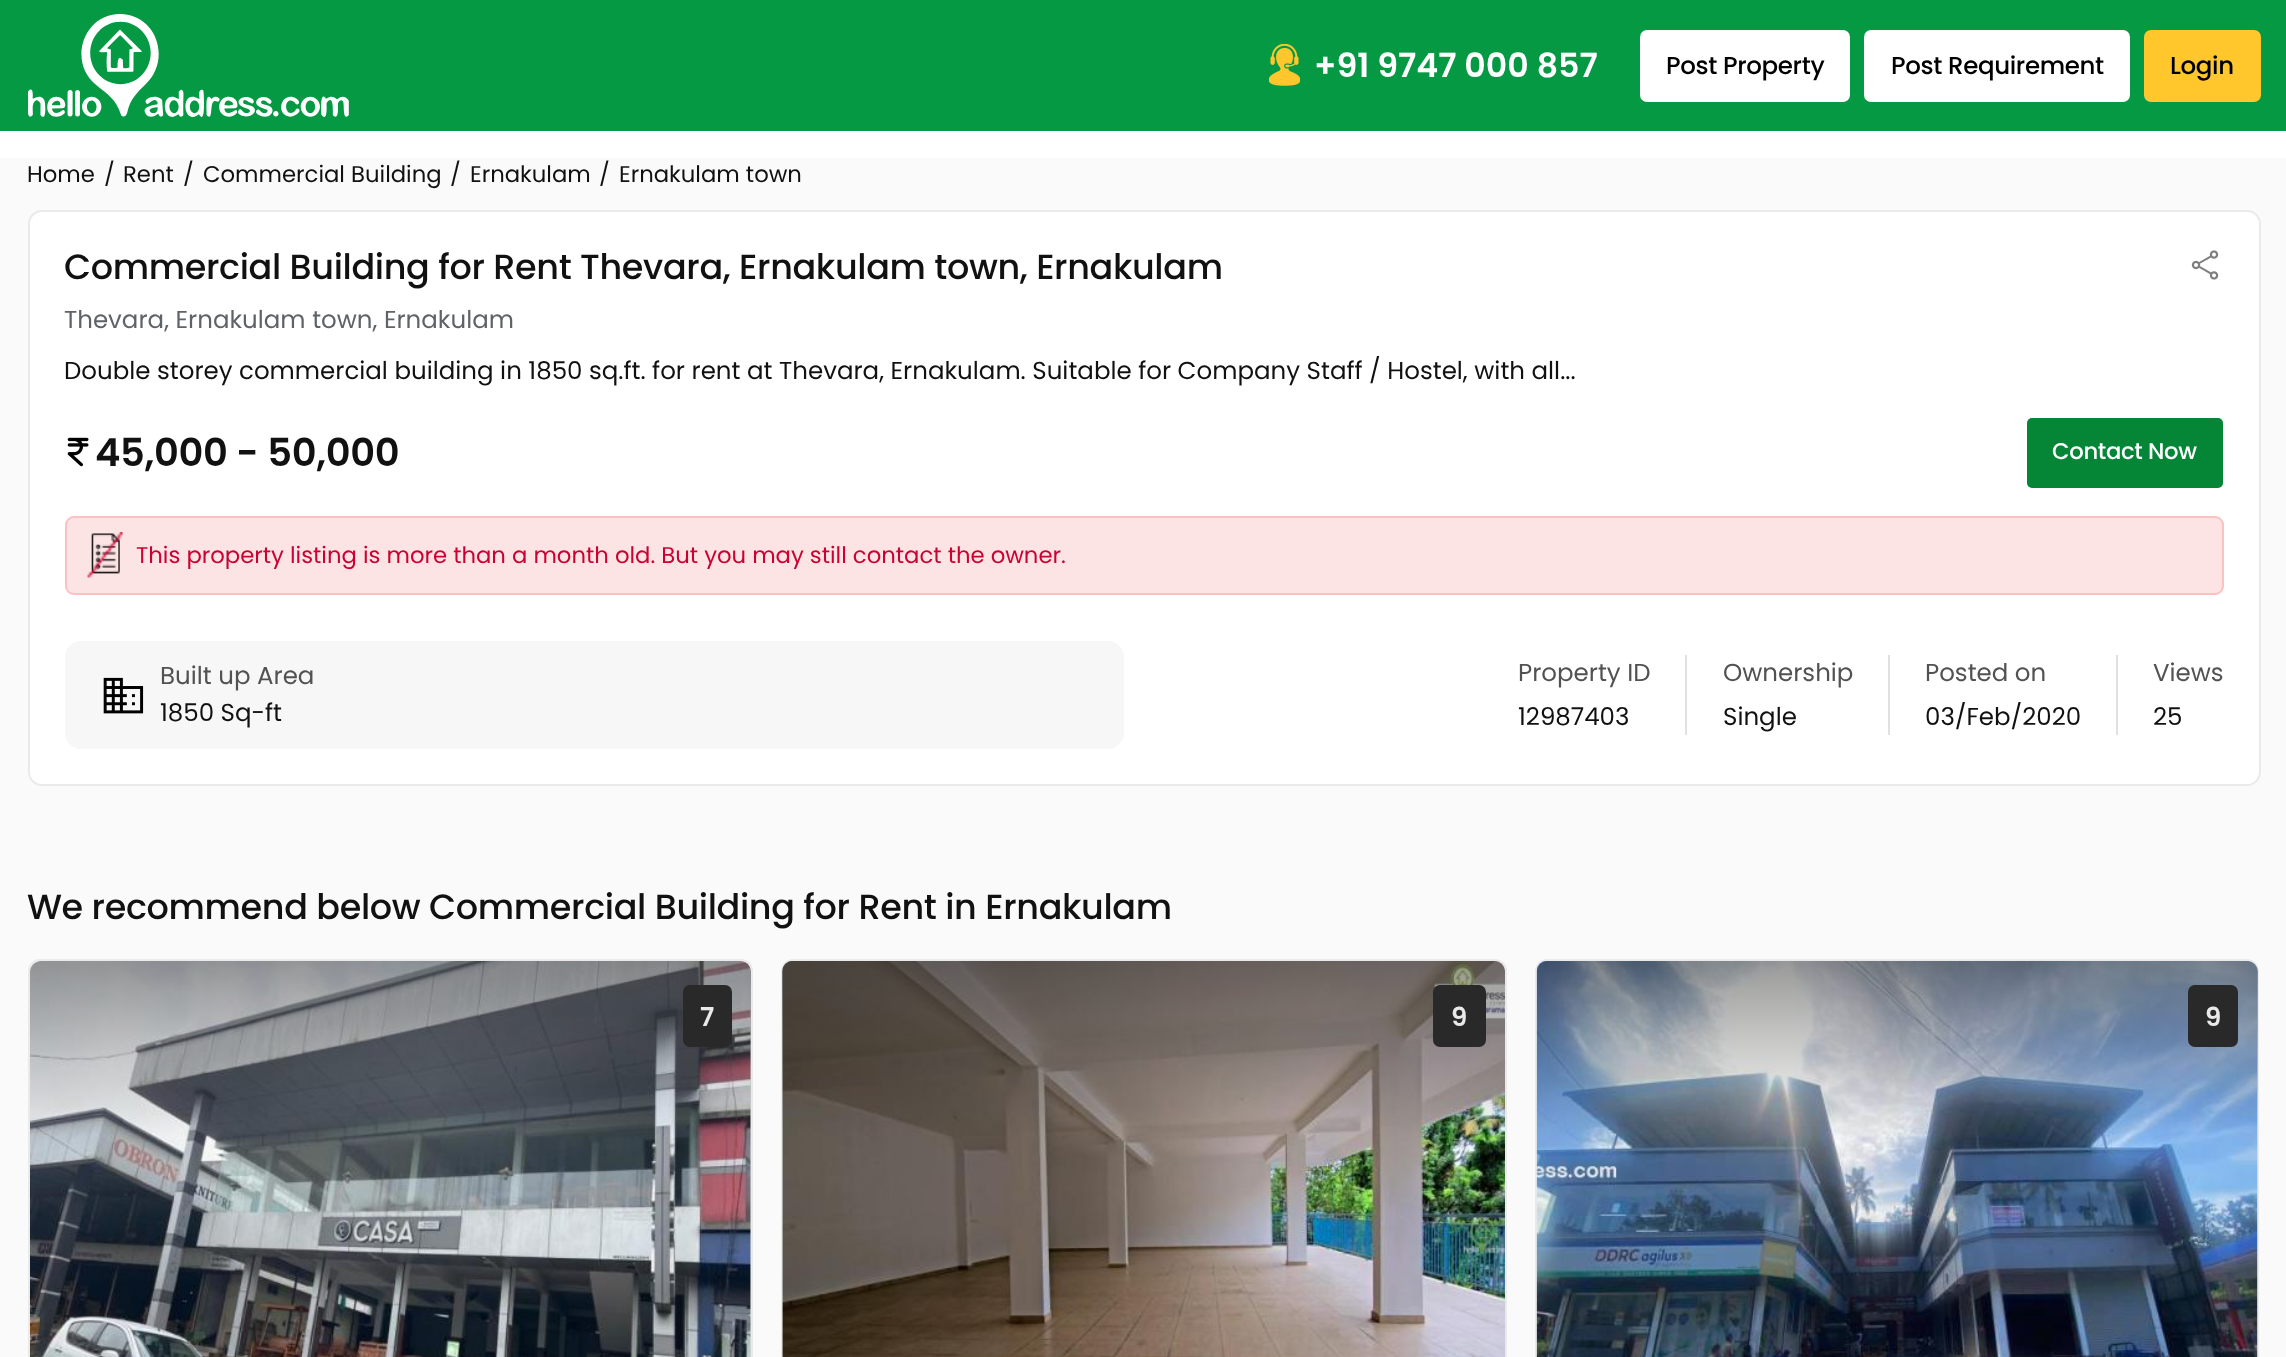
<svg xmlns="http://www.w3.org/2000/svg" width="2286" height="1357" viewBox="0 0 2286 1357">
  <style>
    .t1 { font: 600 33.25px Poppins; fill: #fff; }
    .t2 { font: 500 24.5px Poppins; letter-spacing: -0.35px; fill: #000; }
    .t3 { font: 22.75px Poppins; fill: #111; }
    .t4 { font: 500 35px Poppins; letter-spacing: -0.35px; fill: #111; }
    .t5 { font: 24.5px Poppins; fill: #5f6368; }
    .t6 { font: 24.5px Poppins; fill: #111; }
    .t7 { font: 600 38.5px Poppins; letter-spacing: -0.35px; fill: #111; }
    .t8 { font: 500 22.75px Poppins; letter-spacing: -0.35px; fill: #fff; }
    .t9 { font: 22.75px Poppins; fill: #c03; }
    .t10 { font: 24.5px Poppins; fill: #525252; }
    .t11 { font: 600 26px Poppins; fill: #e9e9e9; }
  </style>
  <defs>
    <linearGradient id="g1" gradientUnits="userSpaceOnUse" x1="390" y1="1136" x2="390" y2="961"><stop offset="0" stop-color="#333" stop-opacity="0"/><stop offset="1" stop-color="#333" stop-opacity="0.5"/></linearGradient>
    <linearGradient id="g2" gradientUnits="userSpaceOnUse" x1="1144" y1="1136" x2="1144" y2="961"><stop offset="0" stop-color="#333" stop-opacity="0"/><stop offset="1" stop-color="#333" stop-opacity="0.5"/></linearGradient>
    <linearGradient id="g3" gradientUnits="userSpaceOnUse" x1="1897" y1="1136" x2="1897" y2="961"><stop offset="0" stop-color="#333" stop-opacity="0"/><stop offset="1" stop-color="#333" stop-opacity="0.5"/></linearGradient>
  </defs>
  <rect width="100%" height="100%" fill="#fff"/>
  <rect x="0" y="0" width="2286" height="131" fill="#059943"/>
  <image x="28" y="14" width="321" height="103" href="images/1.png"/>
  <image x="1269" y="44" width="31" height="42" href="images/2.png"/>
  <text x="1314" y="77" class="t1">+91 9747 000 857</text>
  <rect x="1640" y="30" width="210" height="72" rx="7" fill="#fff"/>
  <text x="1666" y="74" class="t2">Post Property</text>
  <rect x="1864" y="30" width="266" height="72" rx="7" fill="#fff"/>
  <text x="1891" y="74" class="t2">Post Requirement</text>
  <rect x="2144" y="30" width="117" height="72" rx="7" fill="#ffc72c"/>
  <text x="2170" y="74" class="t2">Login</text>
  <rect x="0" y="158" width="2286" height="1199" fill="#fafafa"/>
  <text x="27" y="182" class="t3">Home</text>
  <text x="104" y="182" class="t3">/</text>
  <text x="123" y="182" class="t3">Rent</text>
  <text x="183" y="182" class="t3">/</text>
  <text x="203" y="182" class="t3">Commercial Building</text>
  <text x="450" y="182" class="t3">/</text>
  <text x="470" y="182" class="t3">Ernakulam</text>
  <text x="599" y="182" class="t3">/</text>
  <text x="619" y="182" class="t3">Ernakulam town</text>
  <rect x="29" y="211" width="2231" height="574" rx="13" fill="#fff" stroke="#eaeaea" stroke-width="2"/>
  <text x="64" y="279" class="t4">Commercial Building for Rent Thevara, Ernakulam town, Ernakulam</text>
  <text x="64" y="328" class="t5">Thevara, Ernakulam town, Ernakulam</text>
  <text x="64" y="379" class="t6">Double storey commercial building in 1850 sq.ft. for rent at Thevara, Ernakulam. Suitable for Company Staff / Hostel, with all...</text>
  <image x="2191" y="250" width="28" height="30" href="images/3.png"/>
  <image x="67" y="437" width="22" height="30" href="images/4.png"/>
  <text x="95" y="466" class="t7">45,000 - 50,000</text>
  <rect x="2027" y="418" width="196" height="70" rx="5" fill="#058536"/>
  <text x="2052" y="459" class="t8">Contact Now</text>
  <rect x="65" y="516" width="2159" height="79" rx="9" fill="#fce4e4"/>
  <image x="87" y="532" width="36" height="46" href="images/5.png"/>
  <rect x="66" y="517" width="2157" height="77" rx="8" fill="none" stroke="#fcc2c3" stroke-width="2"/>
  <text x="136" y="563" class="t9">This property listing is more than a month old. But you may still contact the owner.</text>
  <rect x="65" y="641" width="1059" height="108" rx="16" fill="#f7f7f7"/>
  <image x="103" y="677" width="41" height="37" href="images/6.png"/>
  <text x="160" y="684" class="t10">Built up Area</text>
  <text x="160" y="721" class="t6">1850 Sq-ft</text>
  <rect x="1685" y="655" width="2" height="80" fill="#e1e1e1"/>
  <text x="1518" y="681" class="t10">Property ID</text>
  <text x="1518" y="725" class="t6">12987403</text>
  <rect x="1888" y="655" width="2" height="80" fill="#e1e1e1"/>
  <text x="1723" y="681" class="t10">Ownership</text>
  <text x="1723" y="725" class="t6">Single</text>
  <rect x="2116" y="655" width="2" height="80" fill="#e1e1e1"/>
  <text x="1925" y="681" class="t10">Posted on</text>
  <text x="1925" y="725" class="t6">03/Feb/2020</text>
  <text x="2153" y="681" class="t10">Views</text>
  <text x="2153" y="725" class="t6">25</text>
  <text x="27" y="919" class="t4">We recommend below Commercial Building for Rent in Ernakulam</text>
  <rect x="29" y="960" width="723" height="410" rx="11" fill="#fff" stroke="#eaeaea" stroke-width="2"/>
  <path d="M41 961H740C746 961 751 966 751 972V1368H30V972C30 966 35 961 41 961Z" fill="#ddd"/>
  <image x="30" y="961" width="721" height="396" href="images/7.png"/>
  <path d="M41 961H740C746 961 751 966 751 972V1136H30V972C30 966 35 961 41 961Z" fill="url(#g1)"/>
  <rect x="683" y="985" width="49" height="62" rx="7" fill="#292929"/>
  <text x="700" y="1026" class="t11">7</text>
  <rect x="782" y="960" width="724" height="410" rx="11" fill="none" stroke="#eaeaea" stroke-width="2"/>
  <path d="M793 961H1494C1500 961 1505 966 1505 972V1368H782V972C782 966 787 961 793 961Z" fill="#ddd"/>
  <image x="782" y="961" width="723" height="396" href="images/8.png"/>
  <path d="M793 961H1494C1500 961 1505 966 1505 972V1136H782V972C782 966 787 961 793 961Z" fill="url(#g2)"/>
  <rect x="1433" y="985" width="53" height="62" rx="7" fill="#292929"/>
  <text x="1451" y="1026" class="t11">9</text>
  <rect x="1536" y="960" width="722" height="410" rx="11" fill="none" stroke="#eaeaea" stroke-width="2"/>
  <path d="M1548 961H2247C2253 961 2258 966 2258 972V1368H1537V972C1537 966 1542 961 1548 961Z" fill="#ddd"/>
  <image x="1536" y="961" width="722" height="396" href="images/9.png"/>
  <path d="M1548 961H2247C2253 961 2258 966 2258 972V1136H1537V972C1537 966 1542 961 1548 961Z" fill="url(#g3)"/>
  <rect x="2188" y="985" width="50" height="62" rx="7" fill="#292929"/>
  <text x="2205" y="1026" class="t11">9</text>
</svg>
